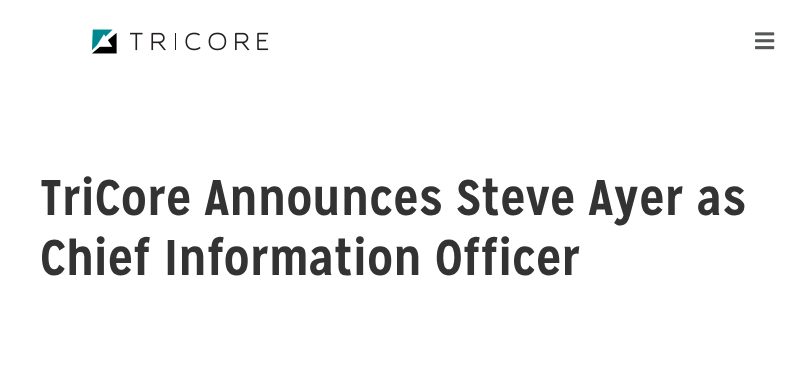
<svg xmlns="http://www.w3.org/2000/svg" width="802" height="389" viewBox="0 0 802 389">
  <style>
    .t1 { font: bold 50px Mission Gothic; fill: #333; }
  </style>
  <rect width="100%" height="100%" fill="#fff"/>
  <image x="92" y="29" width="177" height="25" href="images/1.png"/>
  <image x="755" y="32" width="20" height="18" href="images/2.png"/>
  <text x="40" y="215" class="t1">TriCore Announces Steve Ayer as</text>
  <text x="40" y="275" class="t1">Chief Information Officer</text>
</svg>
